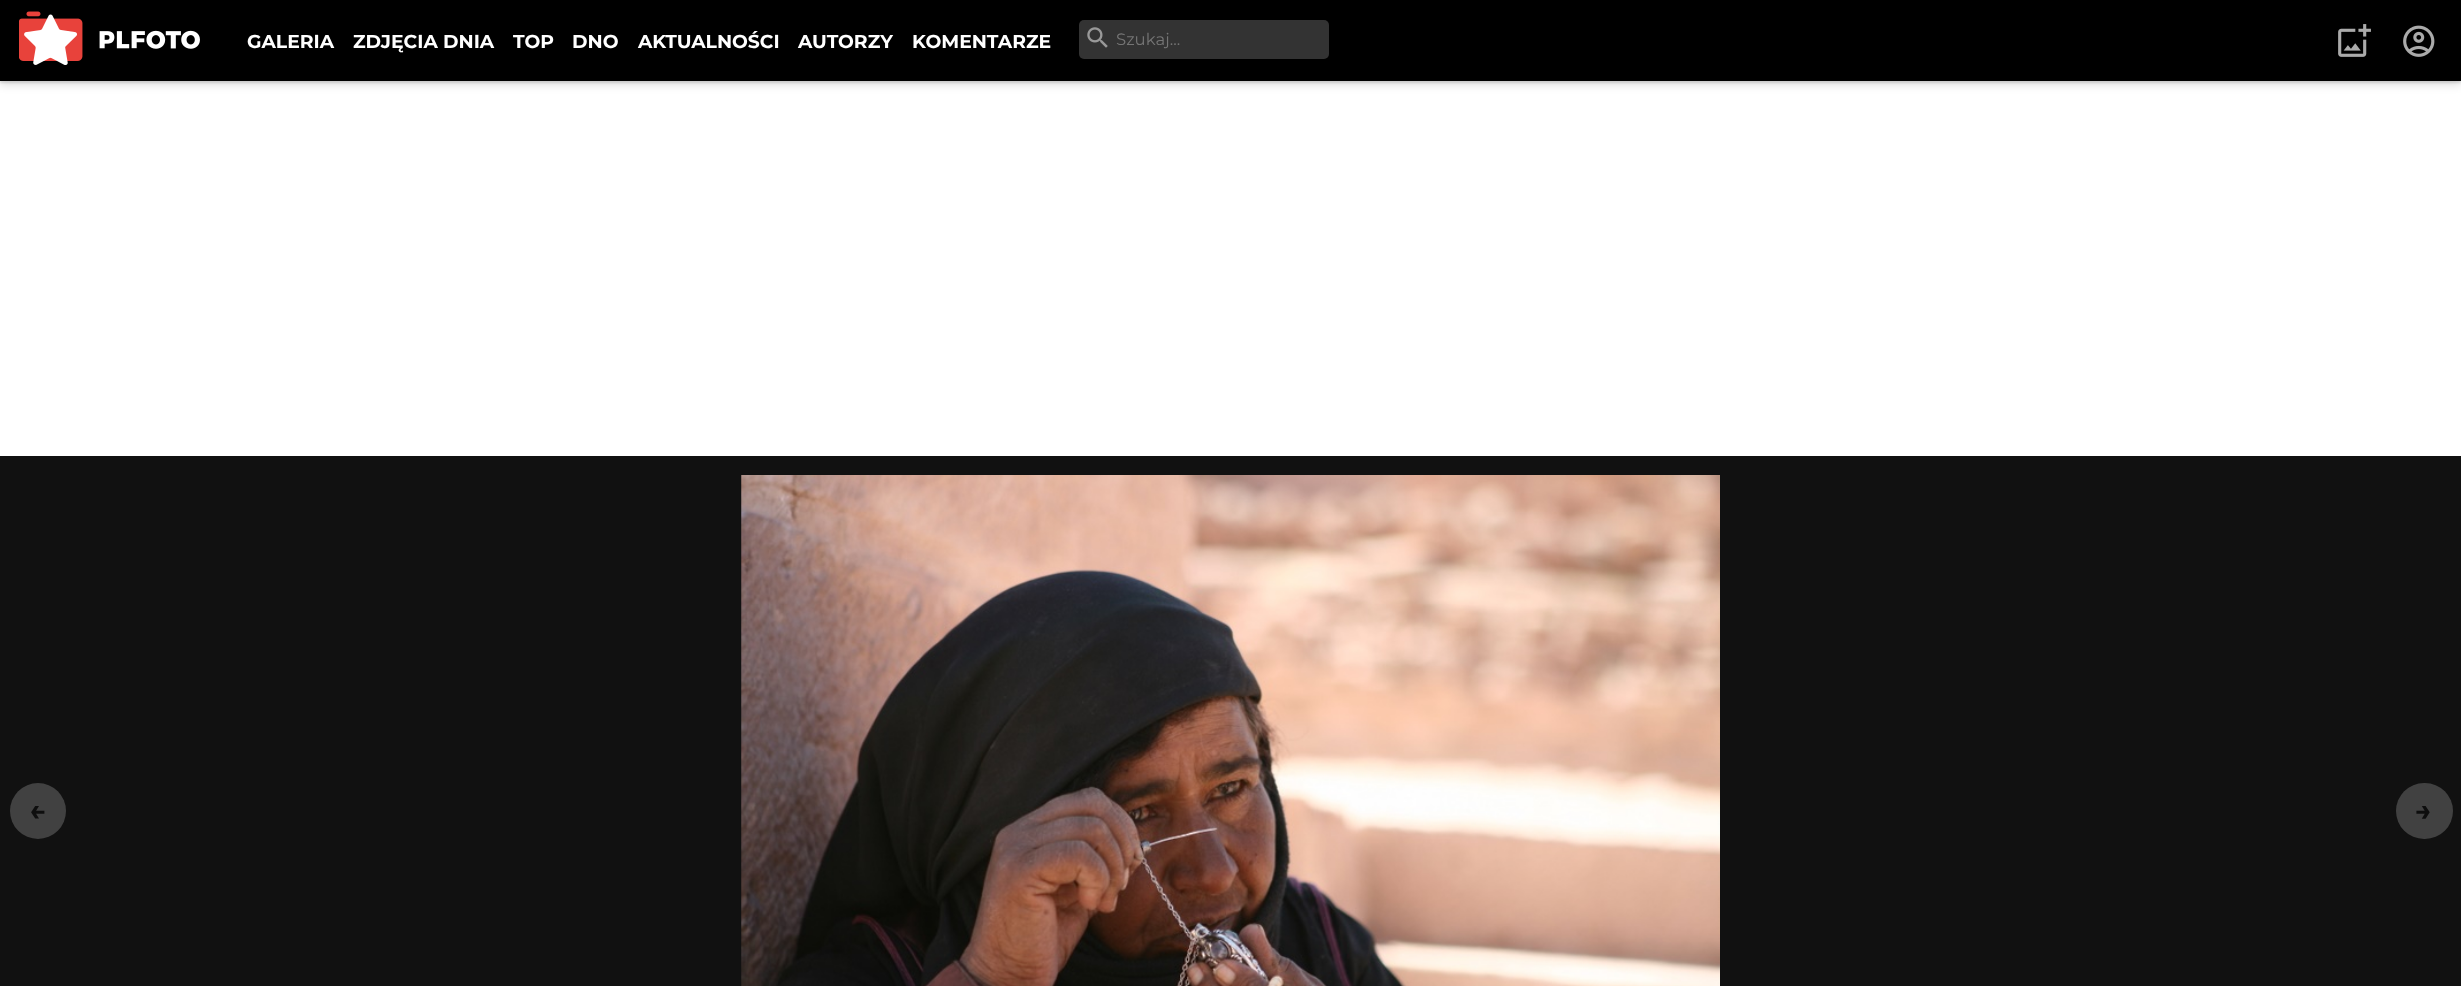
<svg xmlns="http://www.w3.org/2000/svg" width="2461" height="986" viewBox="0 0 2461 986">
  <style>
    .t1 { font: bold 18.75px Montserrat; fill: #fff; }
    .t2 { font: 16.5px Montserrat; fill: #757575; }
    .t3 { font: bold 28px Montserrat; fill: #0e0e0e; }
  </style>
  <rect width="100%" height="100%" fill="#fff"/>
  <rect x="0" y="1" width="2461" height="82" fill="#0000001c" filter="blur(1px)"/>
  <rect x="0" y="4" width="2461" height="81" fill="#00000021" filter="blur(4.5px)"/>
  <rect x="0" y="0" width="2461" height="81" fill="#000"/>
  <image x="19" y="11" width="181" height="54" href="images/1.png"/>
  <text x="247" y="48" class="t1">GALERIA</text>
  <text x="353" y="48" class="t1">ZDJĘCIA DNIA</text>
  <text x="513" y="48" class="t1">TOP</text>
  <text x="572" y="48" class="t1">DNO</text>
  <text x="638" y="48" class="t1">AKTUALNOŚCI</text>
  <text x="798" y="48" class="t1">AUTORZY</text>
  <text x="912" y="48" class="t1">KOMENTARZE</text>
  <rect x="1079" y="20" width="250" height="39" rx="5" fill="#333"/>
  <image x="1087" y="27" width="21" height="21" href="images/2.png"/>
  <text x="1116" y="45" class="t2">Szukaj...</text>
  <image x="2338" y="24" width="33" height="33" href="images/3.png"/>
  <image x="2403" y="25" width="32" height="32" href="images/4.png"/>
  <rect x="0" y="456" width="2461" height="530" fill="#111"/>
  <circle cx="38" cy="811" r="28" fill="#414141"/>
  <text x="29" y="820" class="t3">←</text>
  <image x="741" y="475" width="979" height="511" href="images/5.png"/>
  <rect x="2396" y="783" width="57" height="56" rx="28" fill="#414141"/>
  <text x="2415" y="820" class="t3">→</text>
</svg>
